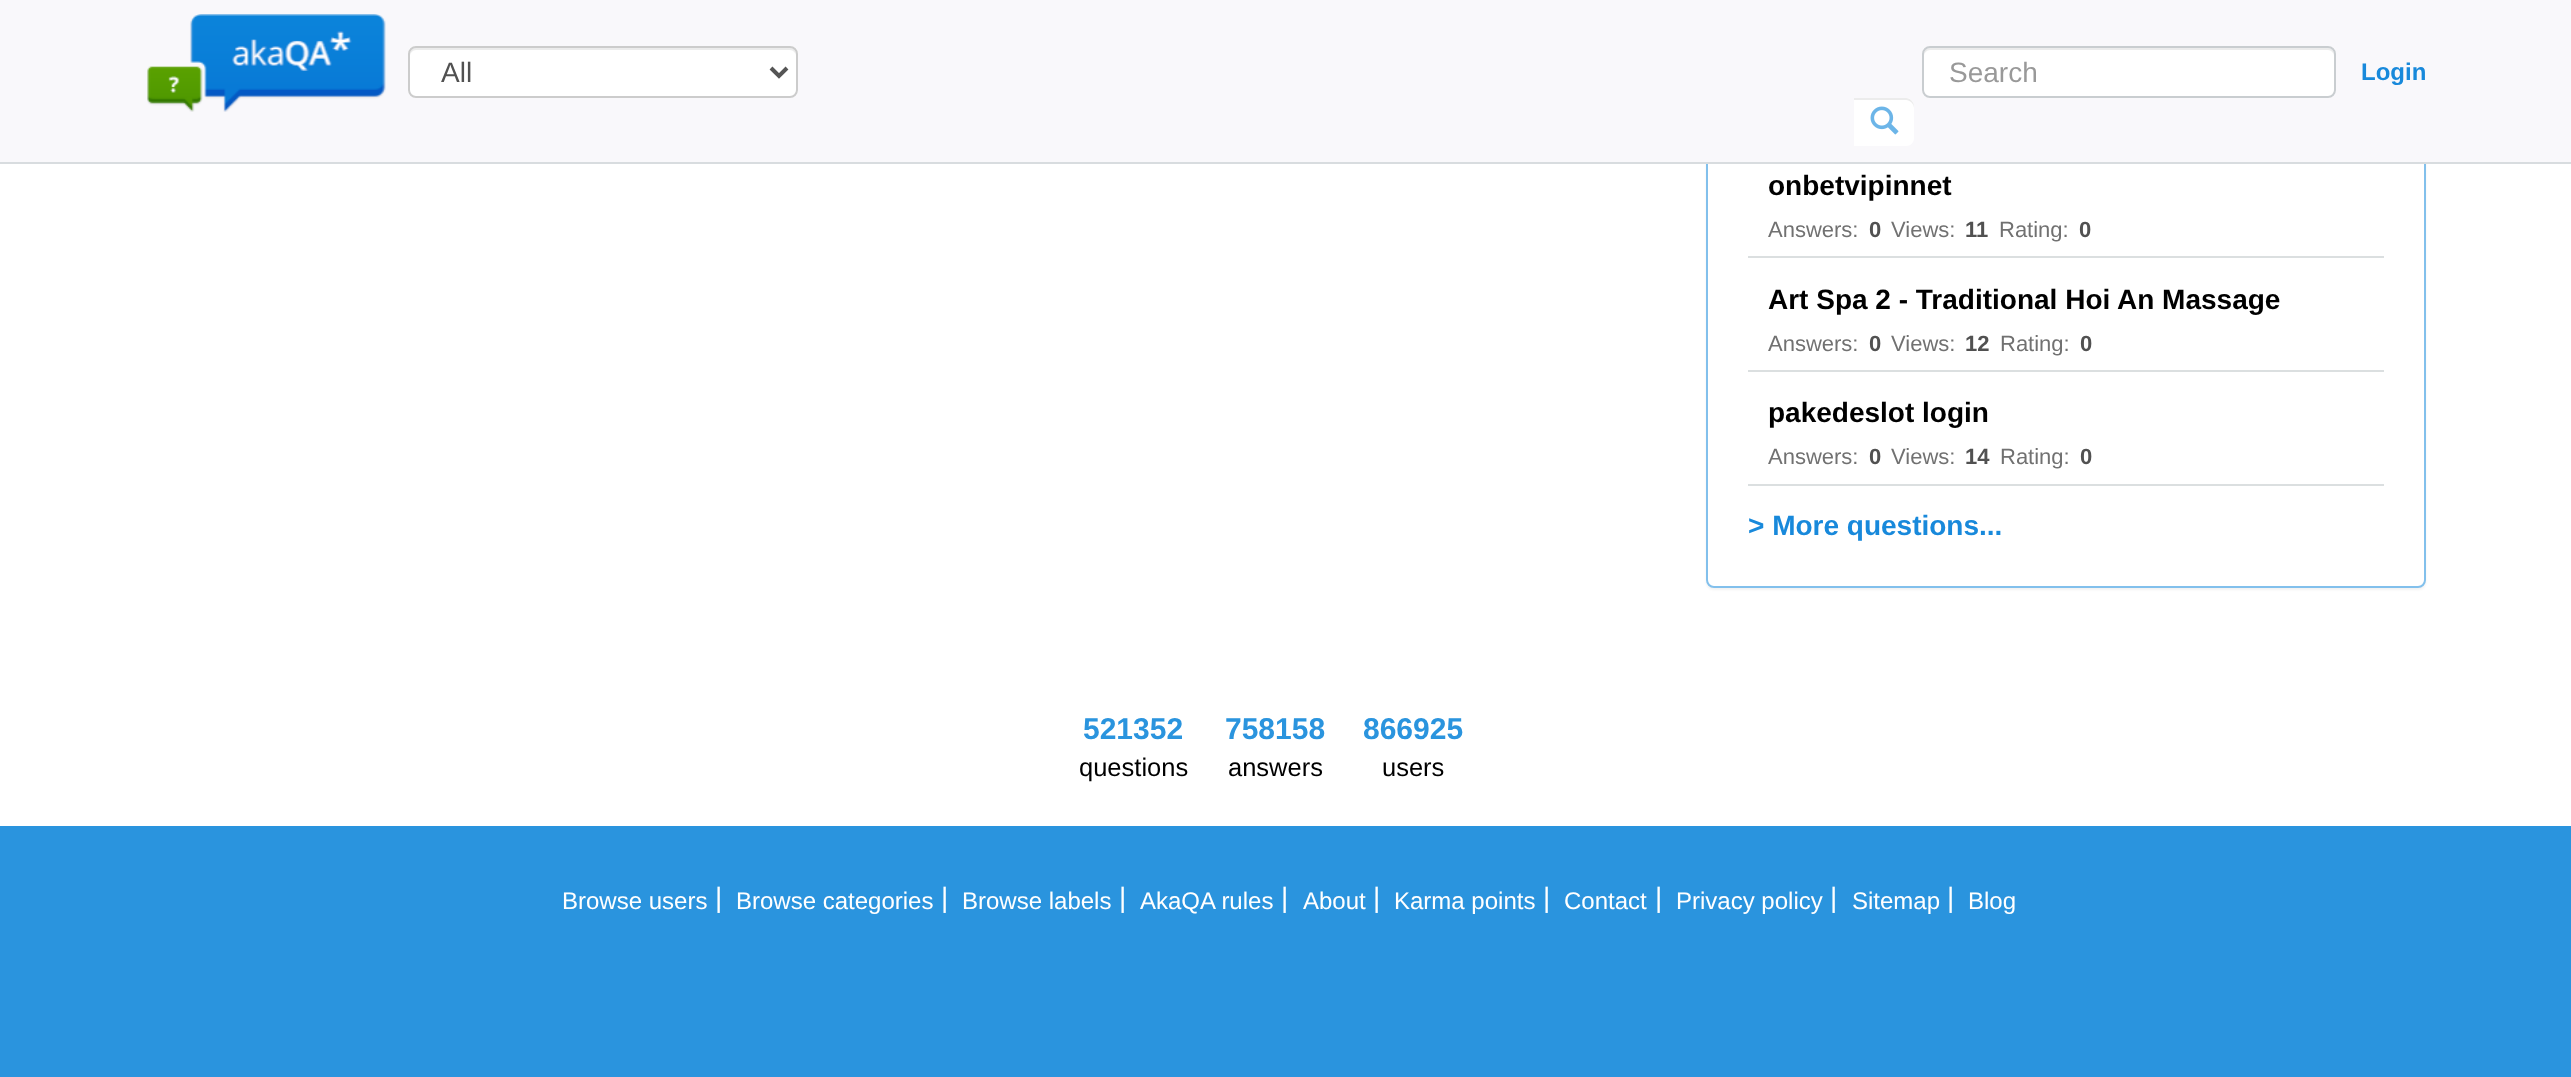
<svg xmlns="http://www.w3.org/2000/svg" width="2571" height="1077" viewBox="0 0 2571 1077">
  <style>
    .t1 { font: 28px Liberation Sans; fill: #515151; }
    .t2 { font: 28px Liberation Sans; fill: #999; }
    .t3 { font: bold 24px Liberation Sans; fill: #1889db; }
    .t4 { font: bold 28px Liberation Sans; fill: #000; }
    .t5 { font: 22px Liberation Sans; fill: #717171; }
    .t6 { font: bold 22px Liberation Sans; fill: #515151; }
    .t7 { font: bold 28px Liberation Sans; fill: #1889db; }
    .t8 { font: bold 30px Liberation Sans; fill: #2a94de; }
    .t9 { font: 25.5px Liberation Sans; fill: #000; }
    .t10 { font: 24px Liberation Sans; fill: #fff; }
    .t11 { font: 28px Liberation Sans; fill: #fff; }
  </style>
  <rect width="100%" height="100%" fill="#fff"/>
  <rect x="1706" y="-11" width="720" height="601" rx="8" fill="#0000000d" filter="blur(1px)"/>
  <rect x="1707" y="-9" width="718" height="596" rx="7" fill="#fff" stroke="#82c0ec" stroke-width="2"/>
  <rect x="0" y="0" width="2571" height="162" fill="#f9f8fb"/>
  <rect x="0" y="162" width="2571" height="2" fill="#d8dcdf"/>
  <image x="147" y="14" width="239" height="98" href="images/1.png"/>
  <rect x="408" y="46" width="390" height="52" rx="8" fill="#fff"/>
  <path d="M416 50H790C793 50 796 53 796 56C796 52 795 48 790 48H416C411 48 410 52 410 56C410 53 413 50 416 50Z" fill="#ececec"/>
  <rect x="409" y="47" width="388" height="50" rx="7" fill="none" stroke="#ccc" stroke-width="2"/>
  <path d="M771 68L779 76L787 68" fill="none" stroke="#555" stroke-width="4"/>
  <text x="441" y="82" class="t1">All</text>
  <rect x="1922" y="46" width="414" height="52" rx="8" fill="#fff"/>
  <path d="M1930 50H2328C2331 50 2334 53 2334 56C2334 52 2333 48 2328 48H1930C1925 48 1924 52 1924 56C1924 53 1927 50 1930 50Z" fill="#ececec"/>
  <rect x="1923" y="47" width="412" height="50" rx="7" fill="none" stroke="#c9cdd0" stroke-width="2"/>
  <text x="1949" y="82" class="t2">Search</text>
  <path d="M1854 98H1906C1910.5 98 1914 101.5 1914 106V138C1914 142.5 1910.5 146 1906 146H1854Z" fill="#fff"/>
  <path d="M1854 100H1906C1910 100 1914 104 1914 108V106C1914 102 1910 98 1906 98H1854Z" fill="#ececec"/>
  <image x="1870" y="106" width="29" height="29" href="images/2.png"/>
  <text x="2361" y="80" class="t3">Login</text>
  <rect x="1748" y="256" width="636" height="2" fill="#dbdfe0"/>
  <text x="1768" y="195" class="t4">onbetvipinnet</text>
  <text x="1768" y="237" class="t5">Answers:</text>
  <text x="1869" y="237" class="t6">0</text>
  <text x="1891" y="237" class="t5">Views:</text>
  <text x="1965" y="237" class="t6">11</text>
  <text x="1999" y="237" class="t5">Rating:</text>
  <text x="2079" y="237" class="t6">0</text>
  <rect x="1748" y="370" width="636" height="2" fill="#dbdfe0"/>
  <text x="1768" y="309" class="t4">Art Spa 2 - Traditional Hoi An Massage</text>
  <text x="1768" y="351" class="t5">Answers:</text>
  <text x="1869" y="351" class="t6">0</text>
  <text x="1891" y="351" class="t5">Views:</text>
  <text x="1965" y="351" class="t6">12</text>
  <text x="2000" y="351" class="t5">Rating:</text>
  <text x="2080" y="351" class="t6">0</text>
  <rect x="1748" y="484" width="636" height="2" fill="#dbdfe0"/>
  <text x="1768" y="422" class="t4">pakedeslot login</text>
  <text x="1768" y="464" class="t5">Answers:</text>
  <text x="1869" y="464" class="t6">0</text>
  <text x="1891" y="464" class="t5">Views:</text>
  <text x="1965" y="464" class="t6">14</text>
  <text x="2000" y="464" class="t5">Rating:</text>
  <text x="2080" y="464" class="t6">0</text>
  <text x="1748" y="535" class="t7">&gt; More questions...</text>
  <text x="1083" y="739" class="t8">521352</text>
  <text x="1079" y="776" class="t9">questions</text>
  <text x="1225" y="739" class="t8">758158</text>
  <text x="1228" y="776" class="t9">answers</text>
  <text x="1363" y="739" class="t8">866925</text>
  <text x="1382" y="776" class="t9">users</text>
  <rect x="0" y="826" width="2571" height="251" fill="#2a94de"/>
  <text x="562" y="909" class="t10">Browse users</text>
  <text x="715" y="907" class="t11">|</text>
  <text x="736" y="909" class="t10">Browse categories</text>
  <text x="941" y="907" class="t11">|</text>
  <text x="962" y="909" class="t10">Browse labels</text>
  <text x="1119" y="907" class="t11">|</text>
  <text x="1140" y="909" class="t10">AkaQA rules</text>
  <text x="1281" y="907" class="t11">|</text>
  <text x="1303" y="909" class="t10">About</text>
  <text x="1373" y="907" class="t11">|</text>
  <text x="1394" y="909" class="t10">Karma points</text>
  <text x="1543" y="907" class="t11">|</text>
  <text x="1564" y="909" class="t10">Contact</text>
  <text x="1655" y="907" class="t11">|</text>
  <text x="1676" y="909" class="t10">Privacy policy</text>
  <text x="1830" y="907" class="t11">|</text>
  <text x="1852" y="909" class="t10">Sitemap</text>
  <text x="1947" y="907" class="t11">|</text>
  <text x="1968" y="909" class="t10">Blog</text>
</svg>
